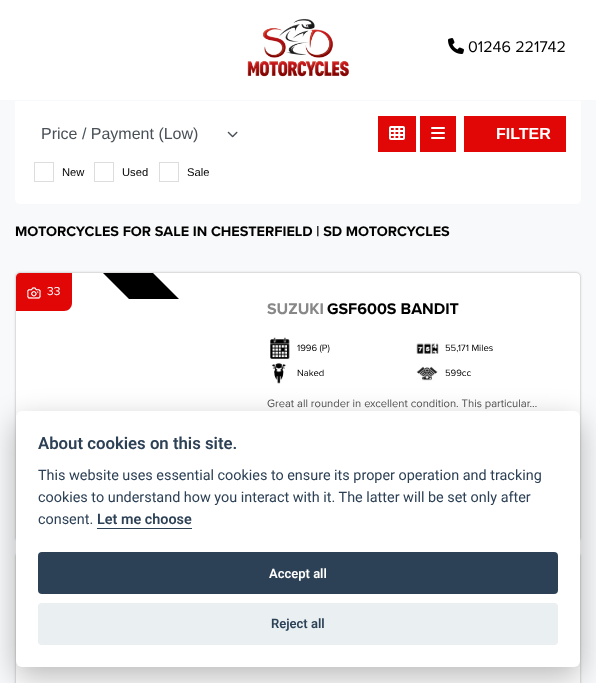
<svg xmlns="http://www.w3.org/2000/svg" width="596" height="683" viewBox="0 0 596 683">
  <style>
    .t1 { font: 16px Proxima Nova; fill: #000; }
    .t2 { font: 16px Liberation Sans; fill: #495057; }
    .t3 { font: bold 16px Liberation Sans; fill: #fff; }
    .t4 { font: 11.2px Liberation Sans; fill: #000; }
    .t5 { font: bold 14.4px Proxima Nova; fill: #000; }
    .t6 { font: 12px Proxima Nova; fill: #fff; }
    .t7 { font: bold 16px Proxima Nova; fill: #888; }
    .t8 { font: bold 16px Proxima Nova; fill: #000; }
    .t9 { font: 9.5px Proxima Nova; fill: #000; }
    .t10 { font: 11.2px Proxima Nova; fill: #505050; }
    .t11 { font: 600 16.75px Roboto; fill: #2d4156; }
    .t12 { font: 14.4px Roboto; fill: #2d4156; }
    .t13 { font: 600 14.4px Roboto; fill: #2d4156; }
    .t14 { font: 600 13px Roboto; fill: #fff; }
    .t15 { font: 600 13px Roboto; fill: #2d4156; }
  </style>
  <defs>
    <clipPath id="clip1"><rect x="16" y="273" width="195" height="26"/></clipPath>
  </defs>
  <rect width="100%" height="100%" fill="#f8f9fa"/>
  <rect x="0" y="0" width="596" height="100" fill="#fff"/>
  <image x="247" y="18" width="102" height="59" href="images/1.png"/>
  <image x="448" y="38" width="16" height="16" href="images/2.png"/>
  <text x="468" y="52" class="t1">01246 221742</text>
  <path d="M15 101H581V199C581 202 579 204 576 204H20C17 204 15 202 15 199Z" fill="#ffffffe6"/>
  <text x="41" y="139" class="t2">Price / Payment (Low)</text>
  <image x="227" y="131" width="11" height="7" href="images/3.png"/>
  <rect x="378" y="116" width="38" height="36" fill="#e10707"/>
  <image x="389" y="126" width="16" height="14" href="images/4.png"/>
  <rect x="420" y="116" width="36" height="36" fill="#e10707"/>
  <image x="431" y="127" width="14" height="12" href="images/5.png"/>
  <rect x="464" y="116" width="102" height="36" fill="#e10707"/>
  <text x="496" y="139" class="t3">FILTER</text>
  <rect x="34.5" y="162.5" width="19" height="19" fill="none" stroke="#ddd"/>
  <text x="62" y="176" class="t4">New</text>
  <rect x="94.5" y="162.5" width="19" height="19" fill="none" stroke="#ddd"/>
  <text x="122" y="176" class="t4">Used</text>
  <rect x="159.5" y="162.5" width="19" height="19" fill="none" stroke="#ddd"/>
  <text x="187" y="176" class="t4">Sale</text>
  <text x="15" y="236" class="t5">MOTORCYCLES FOR SALE IN CHESTERFIELD | SD MOTORCYCLES</text>
  <rect x="15" y="272" width="566" height="270" rx="5" fill="#0000001a" filter="blur(1px)"/>
  <rect x="15.5" y="272.5" width="565" height="269" rx="4.5" fill="#fff" stroke="#ddd"/>
  <path d="M20 273H72V303C72 307.5 68.5 311 64 311H16V277C16 275 18 273 20 273Z" fill="#e10707"/>
  <image x="27" y="287" width="14" height="12" href="images/6.png"/>
  <text x="47" y="295" class="t6">33</text>
  <g clip-path="url(#clip1)">
    <path d="M153 273L204 324L179 349L103 273Z" fill="#000"/>
  </g>
  <text x="267" y="314" class="t7">SUZUKI</text>
  <text x="327" y="314" class="t8">GSF600S BANDIT</text>
  <image x="270" y="337" width="20" height="22" href="images/7.png"/>
  <text x="297" y="351" class="t9">1996 (P)</text>
  <image x="416" y="343" width="23" height="11" href="images/8.png"/>
  <text x="445" y="351" class="t9">55,171 Miles</text>
  <image x="271" y="363" width="15" height="21" href="images/9.png"/>
  <text x="297" y="376" class="t9">Naked</text>
  <image x="416" y="366" width="22" height="15" href="images/10.png"/>
  <text x="445" y="376" class="t9">599cc</text>
  <text x="267" y="407" class="t10">Great all rounder in excellent condition. This particular…</text>
  <rect x="15" y="552" width="566" height="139" rx="5" fill="#0000001a" filter="blur(1px)"/>
  <rect x="15.5" y="552.5" width="565" height="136" rx="4.5" fill="#fff" stroke="#ddd"/>
  <rect x="16" y="421" width="564" height="256" rx="6" fill="#02020347" filter="blur(15px)"/>
  <rect x="16" y="411" width="564" height="256" rx="6" fill="#fff"/>
  <text x="38" y="449" class="t11">About cookies on this site.</text>
  <text x="38" y="480" class="t12">This website uses essential cookies to ensure its proper operation and tracking</text>
  <text x="38" y="502" class="t12">cookies to understand how you interact with it. The latter will be set only after</text>
  <text x="38" y="524" class="t12">consent.</text>
  <text x="97" y="524" class="t13">Let me choose</text>
  <rect x="97" y="528" width="95" height="1" fill="#2d4156"/>
  <rect x="38" y="552" width="520" height="42" rx="4" fill="#2d4156"/>
  <text x="269" y="578" class="t14">Accept all</text>
  <rect x="38" y="603" width="520" height="42" rx="4" fill="#eaeff2"/>
  <text x="271" y="628" class="t15">Reject all</text>
</svg>
